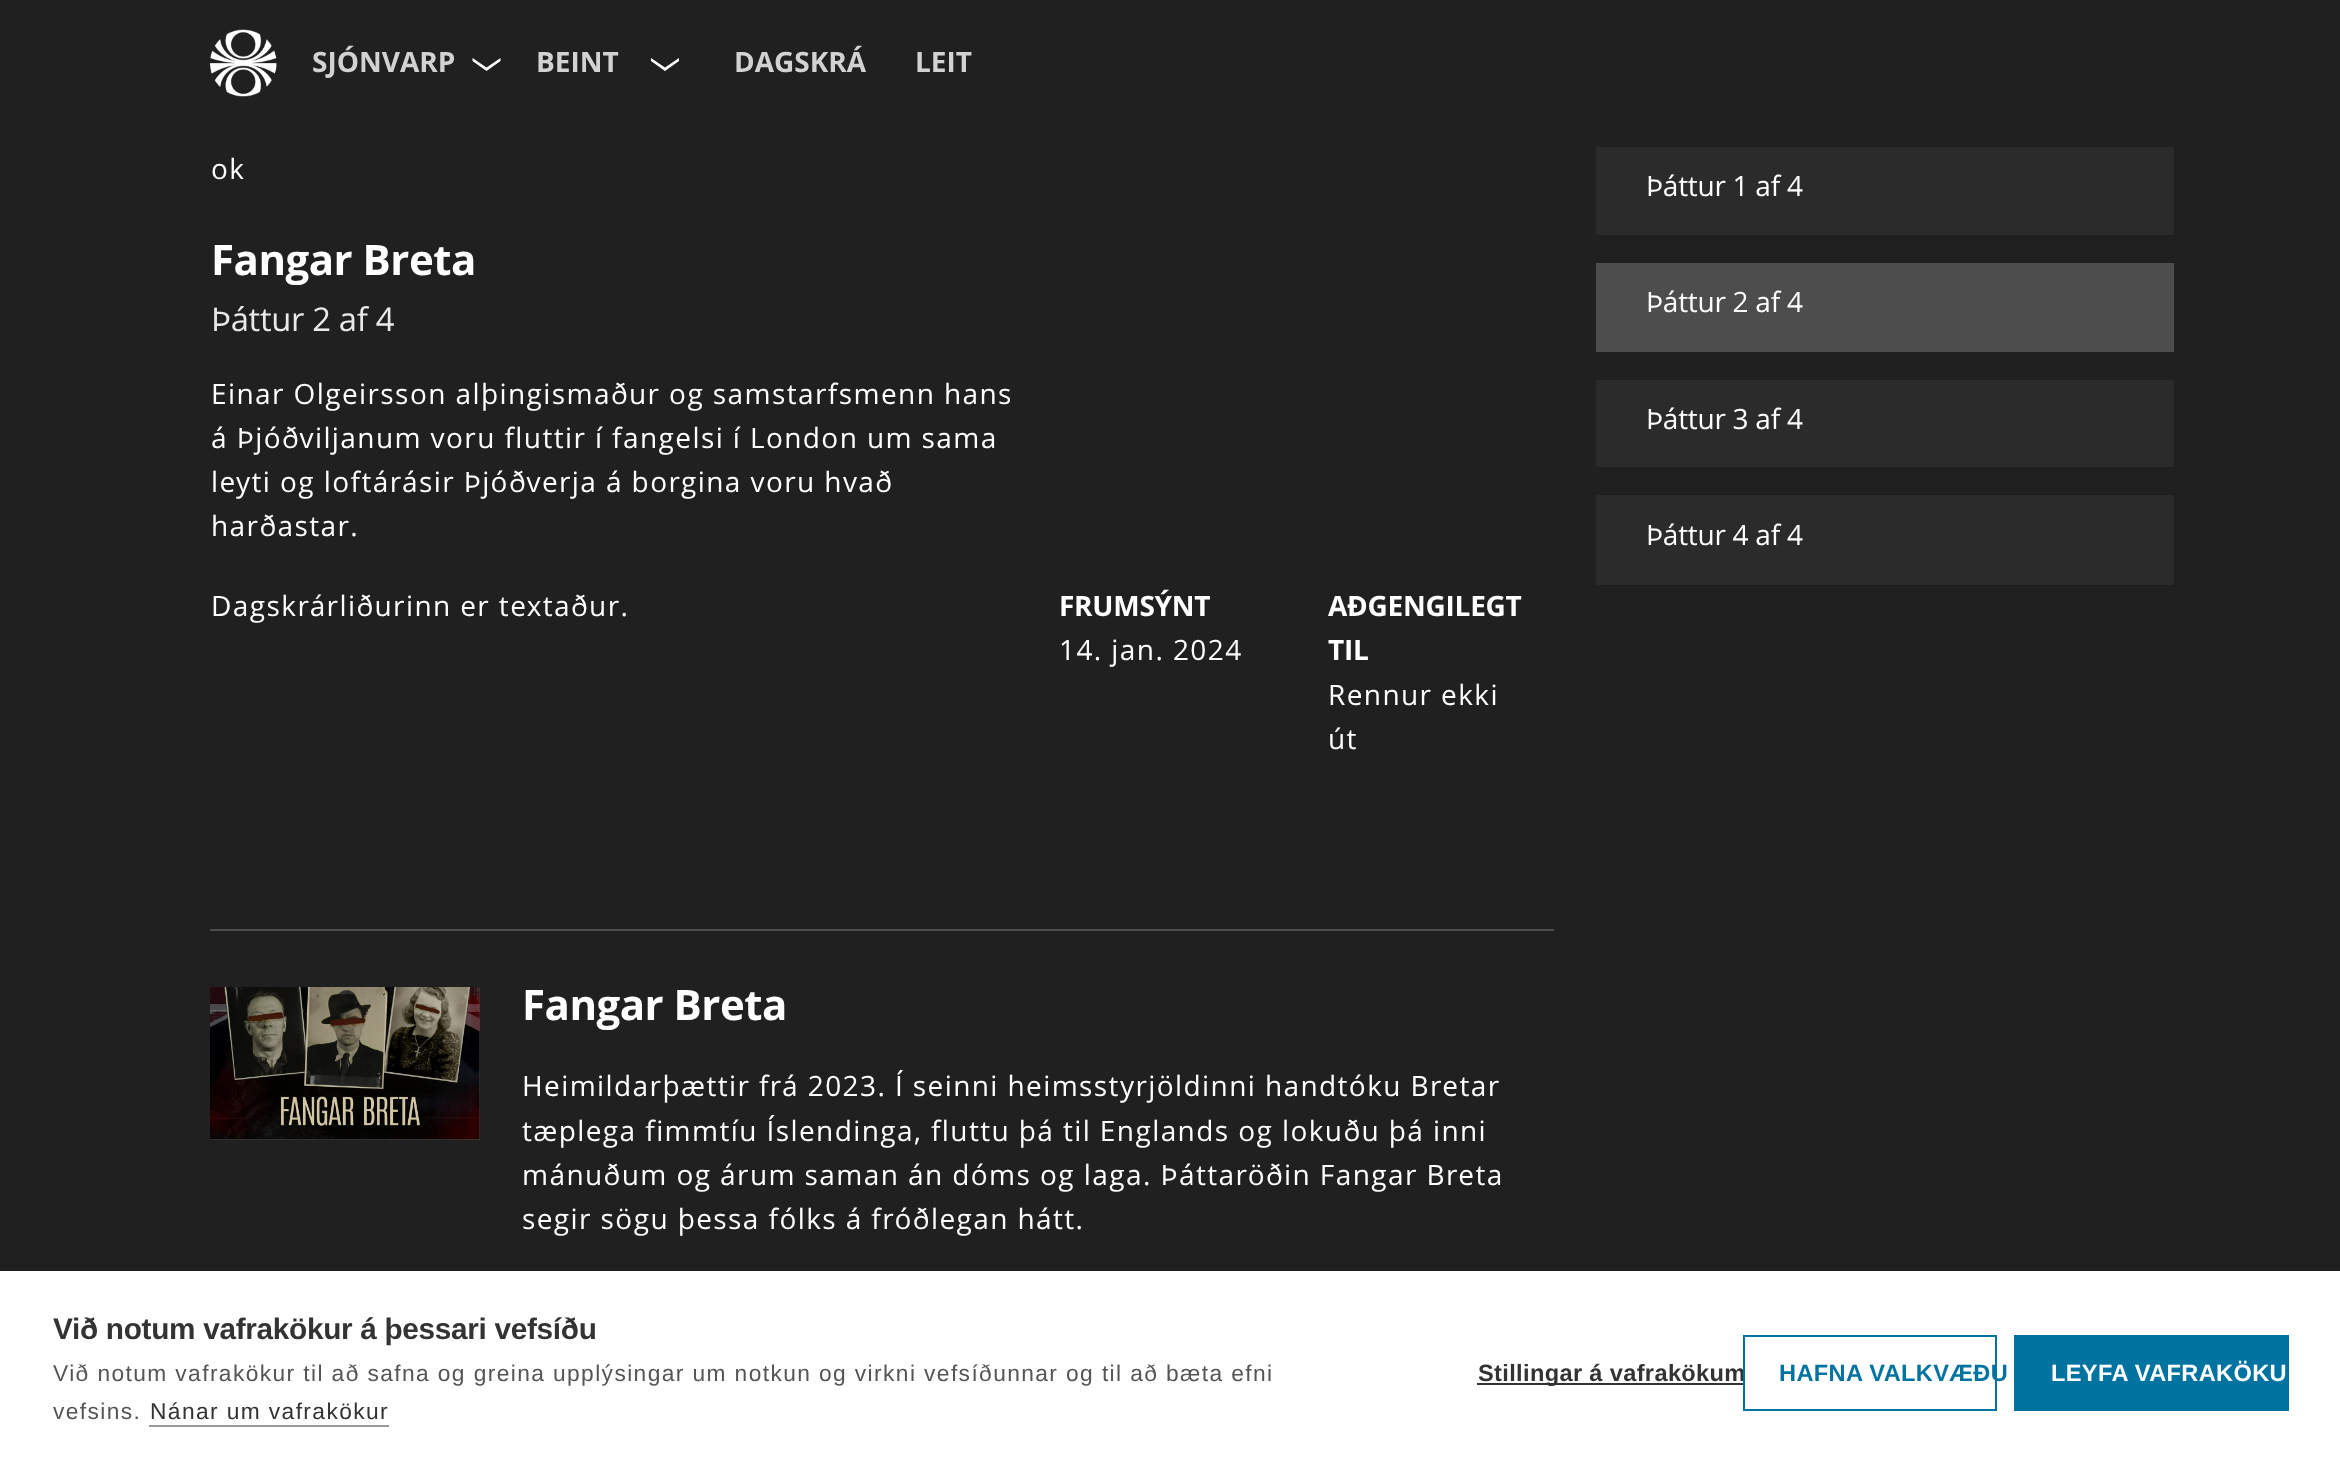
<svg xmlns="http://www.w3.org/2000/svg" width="2340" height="1474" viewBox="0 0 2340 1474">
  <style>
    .t1 { font: bold 28px Open Sans; fill: #d2d2d2; }
    .t2 { font: 28px Open Sans; letter-spacing: 1.4px; fill: #fff; }
    .t3 { font: bold 42px Open Sans; letter-spacing: -0.5px; fill: #fff; }
    .t4 { font: 32.75px Open Sans; letter-spacing: -0.3px; fill: #e9e9e9; }
    .t5 { font: bold 28px Open Sans; letter-spacing: -0.25px; fill: #fff; }
    .t6 { font: 28px Open Sans; letter-spacing: -0.25px; fill: #fff; }
    .t7 { font: bold 29.75px Liberation Sans; letter-spacing: -0.3px; fill: #333; }
    .t8 { font: 22.75px Liberation Sans; letter-spacing: 1.4px; fill: #555; }
    .t9 { font: 22.75px Liberation Sans; letter-spacing: 1.4px; fill: #333; }
    .t10 { font: bold 23.6px Liberation Sans; letter-spacing: 0.35px; fill: #333; }
    .t11 { font: bold 23.6px Liberation Sans; letter-spacing: 0.35px; fill: #0073a0; }
    .t12 { font: bold 23.6px Liberation Sans; letter-spacing: 0.35px; fill: #fff; }
  </style>
  <rect width="100%" height="100%" fill="#202020"/>
  <image x="210" y="29" width="67" height="68" href="images/1.png"/>
  <text x="312" y="72" class="t1">SJÓNVARP</text>
  <path d="M472.5 61L486.5 71L500.5 61V58L486.5 67.5L472.5 58Z" fill="#fff"/>
  <text x="536" y="72" class="t1">BEINT</text>
  <path d="M651 61L665 71L679 61V58L665 67.5L651 58Z" fill="#fff"/>
  <text x="734" y="72" class="t1">DAGSKRÁ</text>
  <text x="915" y="72" class="t1">LEIT</text>
  <text x="211" y="179" class="t2">ok</text>
  <text x="211" y="275" class="t3">Fangar Breta</text>
  <text x="211" y="331" class="t4">Þáttur 2 af 4</text>
  <text x="211" y="404" class="t2">Einar Olgeirsson alþingismaður og samstarfsmenn hans</text>
  <text x="211" y="448" class="t2">á Þjóðviljanum voru fluttir í fangelsi í London um sama</text>
  <text x="211" y="492" class="t2">leyti og loftárásir Þjóðverja á borgina voru hvað</text>
  <text x="211" y="536" class="t2">harðastar.</text>
  <text x="211" y="616" class="t2">Dagskrárliðurinn er textaður.</text>
  <text x="1059" y="616" class="t5">FRUMSÝNT</text>
  <text x="1059" y="660" class="t2">14. jan. 2024</text>
  <text x="1328" y="616" class="t5">AÐGENGILEGT</text>
  <text x="1328" y="660" class="t5">TIL</text>
  <text x="1328" y="705" class="t2">Rennur ekki</text>
  <text x="1328" y="749" class="t2">út</text>
  <rect x="210" y="929" width="1344" height="2" fill="#4d4d4d"/>
  <rect x="210" y="987" width="270" height="153" fill="#404040"/>
  <image x="210" y="987" width="270" height="153" href="images/2.png"/>
  <text x="522" y="1020" class="t3">Fangar Breta</text>
  <text x="522" y="1096" class="t2">Heimildarþættir frá 2023. Í seinni heimsstyrjöldinni handtóku Bretar</text>
  <text x="522" y="1141" class="t2">tæplega fimmtíu Íslendinga, fluttu þá til Englands og lokuðu þá inni</text>
  <text x="522" y="1185" class="t2">mánuðum og árum saman án dóms og laga. Þáttaröðin Fangar Breta</text>
  <text x="522" y="1229" class="t2">segir sögu þessa fólks á fróðlegan hátt.</text>
  <rect x="1596" y="147" width="578" height="88" fill="#2b2b2b"/>
  <text x="1646" y="196" class="t6">Þáttur 1 af 4</text>
  <rect x="1596" y="263" width="578" height="89" fill="#4d4d4d"/>
  <text x="1646" y="312" class="t6">Þáttur 2 af 4</text>
  <rect x="1596" y="380" width="578" height="87" fill="#2b2b2b"/>
  <text x="1646" y="429" class="t6">Þáttur 3 af 4</text>
  <rect x="1596" y="495" width="578" height="90" fill="#2b2b2b"/>
  <text x="1646" y="545" class="t6">Þáttur 4 af 4</text>
  <rect x="0" y="1271" width="2340" height="203" fill="#fff"/>
  <text x="53" y="1339" class="t7">Við notum vafrakökur á þessari vefsíðu</text>
  <text x="53" y="1381" class="t8">Við notum vafrakökur til að safna og greina upplýsingar um notkun og virkni vefsíðunnar og til að bæta efni</text>
  <text x="53" y="1419" class="t8">vefsins.</text>
  <text x="150" y="1419" class="t9">Nánar um vafrakökur</text>
  <rect x="149" y="1425" width="240" height="2" fill="#999"/>
  <rect x="1477" y="1383" width="270" height="2" fill="#333"/>
  <text x="1478" y="1381" class="t10">Stillingar á vafrakökum</text>
  <rect x="1745" y="1383" width="2" height="2" fill="#fff"/>
  <rect x="1744" y="1336" width="252" height="74" fill="none" stroke="#0073a0" stroke-width="2"/>
  <text x="1779" y="1381" class="t11">HAFNA VALKVÆÐU</text>
  <rect x="2014" y="1335" width="275" height="76" fill="#0073a0"/>
  <text x="2051" y="1381" class="t12">LEYFA VAFRAKÖKU</text>
</svg>
